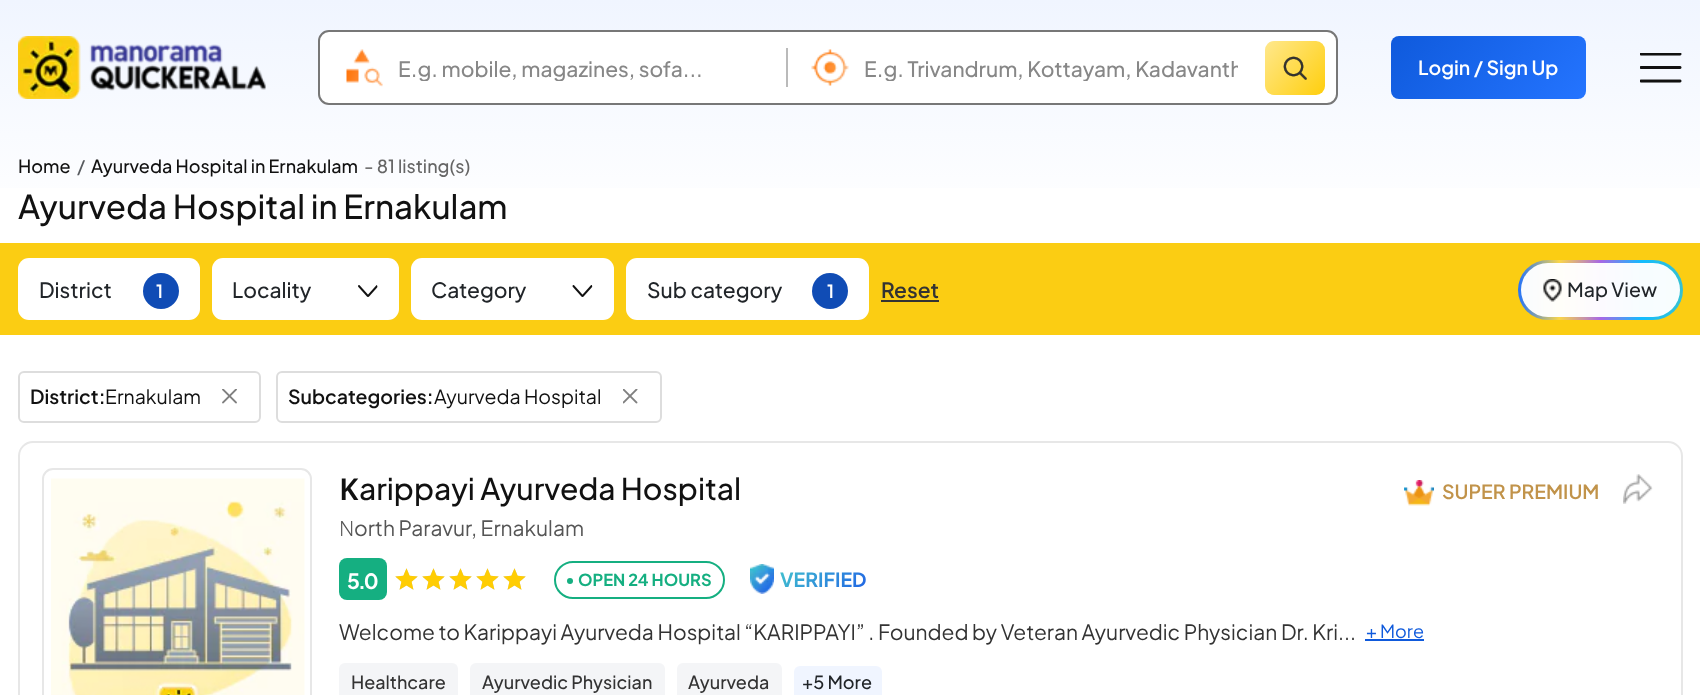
<svg xmlns="http://www.w3.org/2000/svg" width="1700" height="695" viewBox="0 0 1700 695">
  <style>
    .t1 { font: 500 21px Plus Jakarta Sans; fill: #878787; }
    .t2 { font: 600 19.5px Plus Jakarta Sans; fill: #fff; }
    .t3 { font: 500 18px Plus Jakarta Sans; fill: #111; }
    .t4 { font: 500 18px Plus Jakarta Sans; fill: #585b5f; }
    .t5 { font: 500 18px Plus Jakarta Sans; fill: #666; }
    .t6 { font: 500 33px Plus Jakarta Sans; fill: #111; }
    .t7 { font: 500 21px Plus Jakarta Sans; fill: #212529; }
    .t8 { font: 600 18px Plus Jakarta Sans; fill: #fff; }
    .t9 { font: 600 21px Plus Jakarta Sans; fill: #333; }
    .t10 { font: 500 19.5px Plus Jakarta Sans; fill: #212529; }
    .t11 { font: 600 19.5px Plus Jakarta Sans; fill: #111; }
    .t12 { font: 19.5px Plus Jakarta Sans; fill: #111; }
    .t13 { font: 600 30px Noto Sans; fill: #111; }
    .t14 { font: 500 30px Plus Jakarta Sans; fill: #111; }
    .t15 { font: 300 21px Noto Sans; fill: #555; }
    .t16 { font: 21px Plus Jakarta Sans; fill: #555; }
    .t17 { font: 600 19.5px Plus Jakarta Sans; fill: #c1934a; }
    .t18 { font: bold 21px Plus Jakarta Sans; letter-spacing: -2px; fill: #fff; }
    .t19 { font: bold 16.5px Plus Jakarta Sans; fill: #15af81; }
    .t20 { font: bold 19.5px Plus Jakarta Sans; fill: url(#g2); }
    .t21 { font: 21px Plus Jakarta Sans; fill: #333; }
    .t22 { font: 18px Plus Jakarta Sans; fill: #0f5adc; }
    .t23 { font: 500 18px Plus Jakarta Sans; fill: #333; }
    .t24 { font: 500 18px Plus Jakarta Sans; fill: #212529; }
  </style>
  <defs>
    <linearGradient id="g1" gradientUnits="userSpaceOnUse" x1="851" y1="0" x2="851" y2="225"><stop offset="0" stop-color="#f0f5ff"/><stop offset="1" stop-color="#fff"/></linearGradient>
    <clipPath id="clip1"><rect x="398" y="54" width="373" height="27"/></clipPath>
    <clipPath id="clip2"><rect x="864" y="54" width="374" height="27"/></clipPath>
    <linearGradient id="g2" gradientUnits="userSpaceOnUse" x1="792" y1="553" x2="855" y2="606"><stop offset="0" stop-color="#42c2ce"/><stop offset="1" stop-color="#2063e5"/></linearGradient>
    <linearGradient id="g3" gradientUnits="userSpaceOnUse" x1="1264" y1="42" x2="1325" y2="93"><stop offset="0" stop-color="#ffe88d"/><stop offset="1" stop-color="#ffcf0f"/></linearGradient>
    <linearGradient id="g4" gradientUnits="userSpaceOnUse" x1="1415" y1="6.5" x2="1561" y2="129"><stop offset="0" stop-color="#0f5adc"/><stop offset="1" stop-color="#2474ff"/></linearGradient>
    <linearGradient id="g5" gradientUnits="userSpaceOnUse" x1="1518" y1="290" x2="1683" y2="290"><stop offset="0" stop-color="#2272fd"/><stop offset="0.25" stop-color="#fad648"/><stop offset="0.5" stop-color="#a767e5"/><stop offset="0.75" stop-color="#12bcfe"/><stop offset="1" stop-color="#37c1d1"/></linearGradient>
  </defs>
  <rect width="100%" height="100%" fill="#fff"/>
  <rect x="0" y="0" width="1700" height="188" fill="url(#g1)"/>
  <image x="18" y="36" width="248" height="63" href="images/1.png"/>
  <rect x="319" y="31" width="1018" height="73" rx="10" fill="#fff" stroke="#777" stroke-width="2"/>
  <image x="346" y="49" width="37" height="38" href="images/2.png"/>
  <g clip-path="url(#clip1)">
    <text x="398" y="77" class="t1">E.g. mobile, magazines, sofa...</text>
  </g>
  <rect x="786" y="48" width="2" height="39" fill="#bababa"/>
  <image x="811" y="49" width="38" height="37" href="images/3.png"/>
  <g clip-path="url(#clip2)">
    <text x="864" y="77" class="t1">E.g. Trivandrum, Kottayam, Kadavanth</text>
  </g>
  <rect x="1265" y="41" width="60" height="54" rx="9" fill="url(#g3)"/>
  <image x="1283" y="56" width="24" height="24" href="images/4.png"/>
  <rect x="1391" y="36" width="195" height="63" rx="8" fill="url(#g4)"/>
  <text x="1418" y="75" class="t2">Login / Sign Up</text>
  <image x="1640" y="53" width="42" height="30" href="images/5.png"/>
  <text x="18" y="173" class="t3">Home</text>
  <text x="77" y="173" class="t4">/</text>
  <text x="91" y="173" class="t3">Ayurveda Hospital in Ernakulam</text>
  <text x="364" y="173" class="t5">- 81 listing(s)</text>
  <text x="18" y="219" class="t6">Ayurveda Hospital in Ernakulam</text>
  <rect x="0" y="243" width="1700" height="92" fill="#fbcd13"/>
  <rect x="18" y="258" width="182" height="62" rx="11" fill="#fff"/>
  <text x="39" y="298" class="t7">District</text>
  <circle cx="161" cy="291" r="18" fill="#104cb5"/>
  <text x="156" y="298" class="t8">1</text>
  <rect x="212" y="258" width="187" height="62" rx="11" fill="#fff"/>
  <text x="232" y="298" class="t7">Locality</text>
  <image x="358" y="285" width="20" height="12" href="images/6.png"/>
  <rect x="411" y="258" width="203" height="62" rx="11" fill="#fff"/>
  <text x="431" y="298" class="t7">Category</text>
  <image x="572" y="285" width="21" height="12" href="images/7.png"/>
  <rect x="626" y="258" width="243" height="62" rx="11" fill="#fff"/>
  <text x="647" y="298" class="t7">Sub category</text>
  <circle cx="830" cy="291" r="18" fill="#104cb5"/>
  <text x="827" y="298" class="t8">1</text>
  <text x="881" y="298" class="t9">Reset</text>
  <rect x="881" y="300" width="58" height="2" fill="#333"/>
  <rect x="1518" y="260" width="165" height="60" rx="30" fill="url(#g5)"/>
  <rect x="1521" y="263" width="159" height="54" rx="27" fill="#fffffff7"/>
  <image x="1543" y="279" width="19" height="23" href="images/8.png"/>
  <text x="1567" y="297" class="t10">Map View</text>
  <rect x="19" y="372" width="241" height="50" rx="5" fill="none" stroke="#ddd" stroke-width="2"/>
  <text x="30" y="404" class="t11">District:</text>
  <text x="105" y="404" class="t12">Ernakulam</text>
  <image x="222" y="389" width="15" height="15" href="images/9.png"/>
  <rect x="277" y="372" width="384" height="50" rx="5" fill="none" stroke="#ddd" stroke-width="2"/>
  <text x="288" y="404" class="t11">Subcategories:</text>
  <text x="434" y="404" class="t12">Ayurveda Hospital</text>
  <image x="623" y="389" width="15" height="15" href="images/10.png"/>
  <rect x="19" y="442" width="1663" height="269" rx="14" fill="none" stroke="#e7e7e7" stroke-width="2"/>
  <rect x="43" y="469" width="268" height="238" rx="10" fill="none" stroke="#e7e7e7" stroke-width="2"/>
  <image x="51" y="478" width="254" height="217" href="images/11.png"/>
  <text x="339" y="500" class="t13">K</text>
  <text x="359" y="500" class="t14">arippayi Ayurveda Hospital</text>
  <text x="339" y="536" class="t15">N</text>
  <text x="354" y="536" class="t16">orth Paravur, Ernakulam</text>
  <image x="1404" y="480" width="30" height="26" href="images/12.png"/>
  <text x="1442" y="499" class="t17">SUPER PREMIUM</text>
  <image x="1623" y="474" width="30" height="30" href="images/13.png"/>
  <rect x="339" y="558" width="48" height="42" rx="8" fill="#15af81"/>
  <text x="347" y="589" class="t18">5.0</text>
  <image x="395" y="568" width="131" height="22" href="images/14.png"/>
  <image x="395" y="568" width="131" height="22" href="images/15.png"/>
  <rect x="555" y="562" width="169" height="36" rx="18" fill="none" stroke="#15af81" stroke-width="2"/>
  <circle cx="570" cy="581" r="3" fill="#15af81"/>
  <text x="578" y="586" class="t19">OPEN 24 HOURS</text>
  <image x="750" y="564" width="24" height="30" href="images/16.png"/>
  <text x="780" y="587" class="t20">VERIFIED</text>
  <text x="339" y="640" class="t21">Welcome to Karippayi Ayurveda Hospital “KARIPPAYI” . Founded by Veteran Ayurvedic Physician Dr. Kri...</text>
  <text x="1366" y="638" class="t22">+ More</text>
  <rect x="1365" y="639" width="59" height="2" fill="#0f5adc"/>
  <rect x="339" y="663" width="119" height="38" rx="6" fill="#f4f5f7"/>
  <text x="351" y="689" class="t23">Healthcare</text>
  <rect x="470" y="663" width="195" height="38" rx="6" fill="#f4f5f7"/>
  <text x="482" y="689" class="t23">Ayurvedic Physician</text>
  <rect x="677" y="663" width="105" height="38" rx="6" fill="#f4f5f7"/>
  <text x="688" y="689" class="t23">Ayurveda</text>
  <rect x="794" y="666" width="88" height="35" rx="6" fill="#f0f5ff"/>
  <text x="802" y="689" class="t24">+5 More</text>
</svg>
